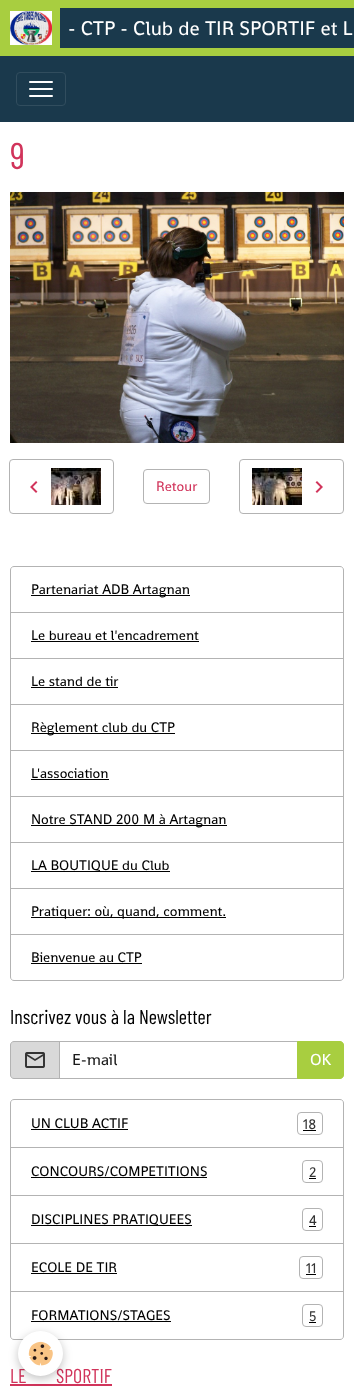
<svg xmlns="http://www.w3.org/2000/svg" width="354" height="1394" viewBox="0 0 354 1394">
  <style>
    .t1 { font: 20px Shanti; fill: #fff; }
    .t2 { font: 37px Barlow Condensed; fill: #d1345b; }
    .t3 { font: 14px Shanti; fill: #d1345b; }
    .t4 { font: 14px Shanti; fill: #000; }
    .t5 { font: 20px Barlow Condensed; fill: #000; }
    .t6 { font: 16px Shanti; fill: #1a1a1a; }
    .t7 { font: 16px Shanti; fill: #fff; }
    .t8 { font: 14px Shanti; fill: #333; }
    .t9 { font: 20px Barlow Condensed; fill: #d1345b; }
  </style>
  <rect width="100%" height="100%" fill="#a8ce40"/>
  <image x="10" y="11" width="42" height="34" href="images/1.png"/>
  <rect x="60" y="8" width="294" height="40" fill="#1a394c"/>
  <text x="68" y="35" class="t1">- CTP - Club de TIR SPORTIF et L</text>
  <rect x="0" y="56" width="354" height="66" fill="#1a394c"/>
  <rect x="16.5" y="72.5" width="49" height="33" rx="3.5" fill="none" stroke="#314d5e"/>
  <rect x="29" y="81" width="24" height="2" rx="1" fill="#fff"/>
  <rect x="29" y="88" width="24" height="2" rx="1" fill="#fff"/>
  <rect x="29" y="95" width="24" height="2" rx="1" fill="#fff"/>
  <rect x="0" y="122" width="354" height="1272" fill="#fff"/>
  <text x="10" y="169" class="t2">9</text>
  <image x="10" y="192" width="334" height="251" href="images/2.png"/>
  <rect x="9.5" y="459.5" width="104" height="54" rx="3.5" fill="none" stroke="#b3b3b3"/>
  <image x="30" y="481" width="8" height="12" href="images/3.png"/>
  <image x="51" y="468" width="50" height="37" href="images/4.png"/>
  <rect x="143.5" y="469.5" width="66" height="34" rx="3.5" fill="none" stroke="#b3b3b3"/>
  <text x="156" y="491" class="t3">Retour</text>
  <rect x="239.5" y="459.5" width="104" height="54" rx="3.5" fill="none" stroke="#b3b3b3"/>
  <image x="252" y="468" width="50" height="37" href="images/5.png"/>
  <image x="315" y="481" width="8" height="12" href="images/6.png"/>
  <path d="M14 566.5H340C342 566.5 343.5 568 343.5 570V612.5H10.5V570C10.5 568 12 566.5 14 566.5Z" fill="none" stroke="#b3b3b3"/>
  <rect x="31" y="595" width="159" height="1" fill="#000"/>
  <text x="31" y="594" class="t4">Partenariat ADB Artagnan</text>
  <rect x="10.5" y="612.5" width="333" height="46" fill="none" stroke="#b3b3b3"/>
  <text x="31" y="640" class="t4">Le bureau et l'encadrement</text>
  <rect x="31" y="641" width="168" height="1" fill="#000"/>
  <rect x="10.5" y="658.5" width="333" height="46" fill="none" stroke="#b3b3b3"/>
  <text x="31" y="686" class="t4">Le stand de tir</text>
  <rect x="31" y="687" width="87" height="1" fill="#000"/>
  <rect x="10.5" y="704.5" width="333" height="46" fill="none" stroke="#b3b3b3"/>
  <rect x="31" y="733" width="144" height="1" fill="#000"/>
  <text x="31" y="732" class="t4">Règlement club du CTP</text>
  <rect x="10.5" y="750.5" width="333" height="46" fill="none" stroke="#b3b3b3"/>
  <text x="31" y="778" class="t4">L'association</text>
  <rect x="31" y="779" width="78" height="1" fill="#000"/>
  <rect x="10.5" y="796.5" width="333" height="46" fill="none" stroke="#b3b3b3"/>
  <rect x="31" y="825" width="196" height="1" fill="#000"/>
  <text x="31" y="824" class="t4">Notre STAND 200 M à Artagnan</text>
  <rect x="10.5" y="842.5" width="333" height="46" fill="none" stroke="#b3b3b3"/>
  <rect x="31" y="871" width="139" height="1" fill="#000"/>
  <text x="31" y="870" class="t4">LA BOUTIQUE du Club</text>
  <rect x="10.5" y="888.5" width="333" height="46" fill="none" stroke="#b3b3b3"/>
  <rect x="31" y="917" width="195" height="1" fill="#000"/>
  <text x="31" y="916" class="t4">Pratiquer: où, quand, comment.</text>
  <path d="M10.5 934.5H343.5V977C343.5 979 342 980.5 340 980.5H14C12 980.5 10.5 979 10.5 977Z" fill="none" stroke="#b3b3b3"/>
  <text x="31" y="962" class="t4">Bienvenue au CTP</text>
  <rect x="31" y="963" width="111" height="1" fill="#000"/>
  <text x="10" y="1024" class="t5">Inscrivez vous à la Newsletter</text>
  <path d="M14 1041.5H59.5V1078.5H14C12 1078.5 10.5 1077 10.5 1075V1045C10.5 1043 12 1041.5 14 1041.5Z" fill="#d9d9d9" stroke="#b3b3b3"/>
  <image x="25" y="1052" width="20" height="16" href="images/7.png"/>
  <rect x="59.5" y="1041.5" width="238" height="37" fill="none" stroke="#b3b3b3"/>
  <text x="72" y="1065" class="t6">E-mail</text>
  <path d="M297.5 1041.5H340C342 1041.5 343.5 1043 343.5 1045V1075C343.5 1077 342 1078.5 340 1078.5H297.5Z" fill="#a8ce40" stroke="#a8ce40"/>
  <text x="310" y="1065" class="t7">OK</text>
  <path d="M14 1099.5H340C342 1099.5 343.5 1101 343.5 1103V1147.5H10.5V1103C10.5 1101 12 1099.5 14 1099.5Z" fill="none" stroke="#b3b3b3"/>
  <text x="31" y="1128" class="t4">UN CLUB ACTIF</text>
  <rect x="31" y="1129" width="97" height="1" fill="#000"/>
  <rect x="297.5" y="1112.5" width="25" height="22" rx="3.5" fill="none" stroke="#b3b3b3"/>
  <text x="303" y="1129" class="t8">18</text>
  <rect x="303" y="1130" width="13" height="1" fill="#000"/>
  <rect x="10.5" y="1147.5" width="333" height="48" fill="none" stroke="#b3b3b3"/>
  <text x="31" y="1176" class="t4">CONCOURS/COMPETITIONS</text>
  <rect x="31" y="1177" width="176" height="1" fill="#000"/>
  <rect x="302.5" y="1160.5" width="20" height="22" rx="3.5" fill="none" stroke="#b3b3b3"/>
  <text x="309" y="1177" class="t8">2</text>
  <rect x="309" y="1178" width="7" height="1" fill="#000"/>
  <rect x="10.5" y="1195.5" width="333" height="48" fill="none" stroke="#b3b3b3"/>
  <rect x="31" y="1225" width="161" height="1" fill="#000"/>
  <text x="31" y="1224" class="t4">DISCIPLINES PRATIQUEES</text>
  <rect x="302.5" y="1208.5" width="20" height="22" rx="3.5" fill="none" stroke="#b3b3b3"/>
  <text x="309" y="1225" class="t8">4</text>
  <rect x="309" y="1226" width="7" height="1" fill="#000"/>
  <rect x="10.5" y="1243.5" width="333" height="48" fill="none" stroke="#b3b3b3"/>
  <text x="31" y="1272" class="t4">ECOLE DE TIR</text>
  <rect x="31" y="1273" width="86" height="1" fill="#000"/>
  <rect x="299.5" y="1256.5" width="23" height="22" rx="3.5" fill="none" stroke="#b3b3b3"/>
  <text x="306" y="1273" class="t8">11</text>
  <rect x="306" y="1274" width="10" height="1" fill="#000"/>
  <path d="M10.5 1291.5H343.5V1336C343.5 1338 342 1339.5 340 1339.5H14C12 1339.5 10.5 1338 10.5 1336Z" fill="none" stroke="#b3b3b3"/>
  <text x="31" y="1320" class="t4">FORMATIONS/STAGES</text>
  <rect x="31" y="1321" width="140" height="1" fill="#000"/>
  <rect x="302.5" y="1304.5" width="20" height="22" rx="3.5" fill="none" stroke="#b3b3b3"/>
  <text x="309" y="1321" class="t8">5</text>
  <rect x="309" y="1322" width="7" height="1" fill="#000"/>
  <text x="10" y="1383" class="t9">LE</text>
  <rect x="10" y="1384" width="102" height="2" fill="#d1345b"/>
  <text x="56" y="1383" class="t9">SPORTIF</text>
  <rect x="18" y="1334" width="45" height="45" rx="22.5" fill="#0000003d" filter="blur(5px)"/>
  <circle cx="40.5" cy="1353.5" r="22.5" fill="#fff"/>
  <image x="28" y="1341" width="25" height="25" href="images/8.png"/>
</svg>
